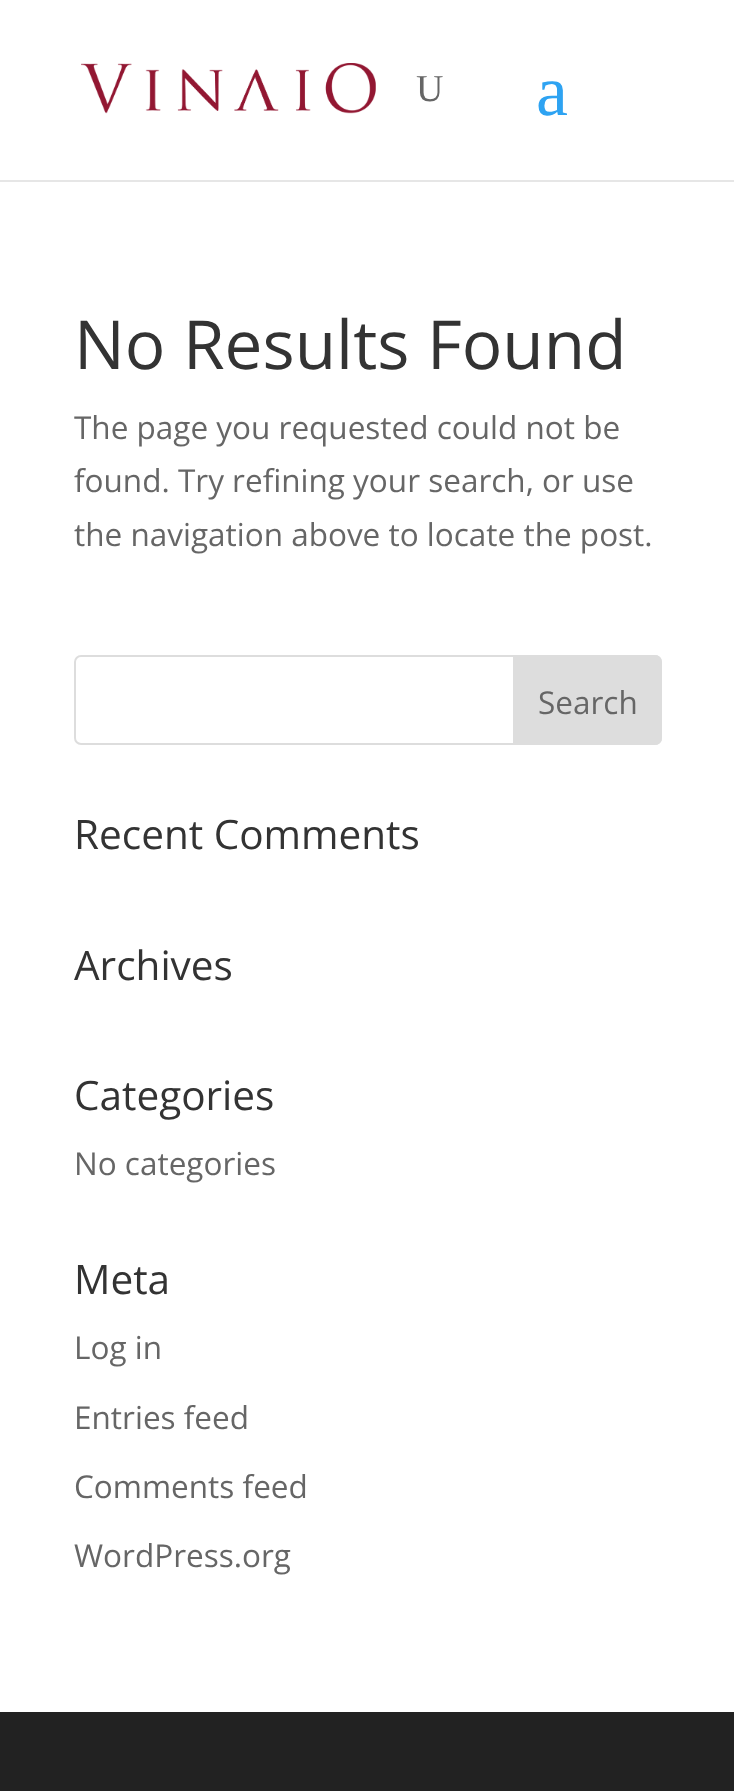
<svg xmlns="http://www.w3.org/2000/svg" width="734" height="1791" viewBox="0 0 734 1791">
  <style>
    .t1 { font: 38px Liberation Serif; fill: #666; }
    .t2 { font: 72px Liberation Serif; fill: #2ea3f2; }
    .t3 { font: 67.5px Open Sans; fill: #333; }
    .t4 { font: 31.5px Open Sans; fill: #666; }
    .t5 { font: 40.5px Open Sans; fill: #333; }
  </style>
  <rect width="100%" height="100%" fill="#fff"/>
  <path d="M0 180V182H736V2V180Z" fill="#e6e6e6"/>
  <image x="81" y="63" width="295" height="51" href="images/1.png"/>
  <text x="416" y="101" class="t1">U</text>
  <text x="536" y="115" class="t2">a</text>
  <text x="74" y="369" class="t3">No Results Found</text>
  <text x="74" y="439" class="t4">The page you requested could not be</text>
  <text x="74" y="492" class="t4">found. Try refining your search, or use</text>
  <text x="74" y="546" class="t4">the navigation above to locate the post.</text>
  <rect x="75" y="656" width="586" height="88" rx="6" fill="none" stroke="#ddd" stroke-width="2"/>
  <path d="M514 656H655C658.5 656 661 658.5 661 662V738C661 741.5 658.5 744 655 744H514Z" fill="#ddd" stroke="#ddd" stroke-width="2"/>
  <text x="538" y="714" class="t4">Search</text>
  <text x="74" y="849" class="t5">Recent Comments</text>
  <text x="74" y="980" class="t5">Archives</text>
  <text x="74" y="1110" class="t5">Categories</text>
  <text x="74" y="1175" class="t4">No categories</text>
  <text x="74" y="1294" class="t5">Meta</text>
  <text x="74" y="1359" class="t4">Log in</text>
  <text x="74" y="1429" class="t4">Entries feed</text>
  <text x="74" y="1498" class="t4">Comments feed</text>
  <text x="74" y="1567" class="t4">WordPress.org</text>
  <rect x="0" y="1712" width="734" height="79" fill="#222"/>
</svg>
